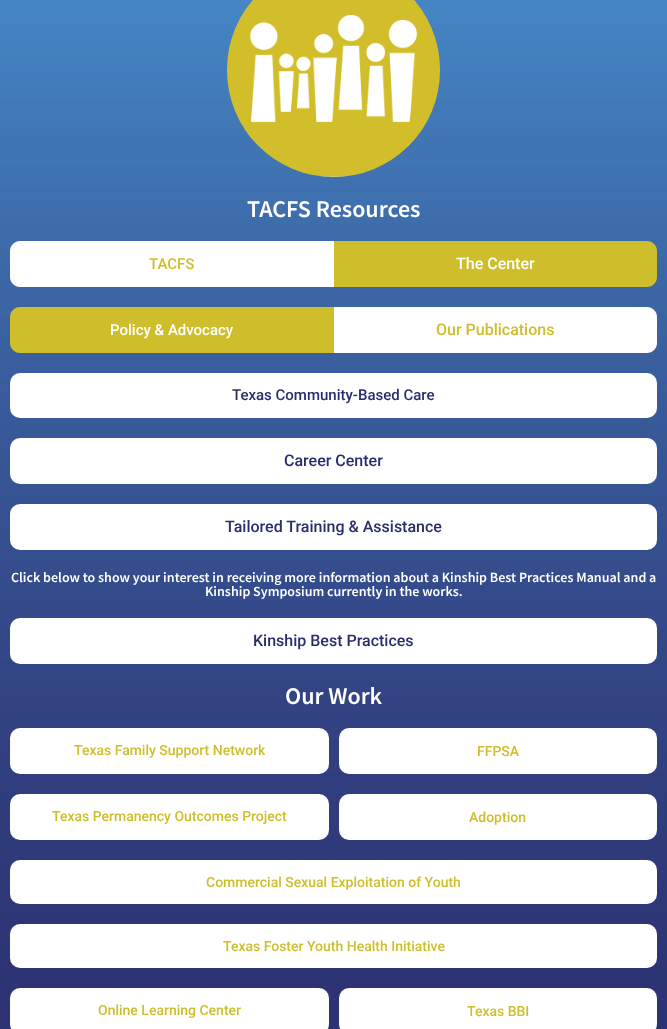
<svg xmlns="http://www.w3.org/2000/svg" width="667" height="1029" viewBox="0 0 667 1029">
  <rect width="100%" height="100%" fill="#ffffff"/>
  <image x="0" y="0" width="667" height="1029" href="img1.png"/>
  <image x="227" y="0" width="213" height="177" href="img2.png"/>
  <text x="247" y="217" font-family="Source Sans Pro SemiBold" font-size="24" font-weight="600" fill="#ffffff">TACFS Resources</text>
  <path d="M20 241H334V287H20C14.5 287 10 282.5 10 277V251C10 245.5 14.5 241 20 241Z" fill="#ffffff"/>
  <text x="149" y="269" font-family="Roboto" font-size="15" font-weight="500" fill="#cfbe2b">TACFS</text>
  <path d="M334 241H647C652.5 241 657 245.5 657 251V277C657 282.5 652.5 287 647 287H334Z" fill="#cfbe2b"/>
  <text x="456" y="269" font-family="Roboto" font-size="16" font-weight="500" fill="#ffffff">The Center</text>
  <path d="M20 307H334V353H20C14.5 353 10 348.5 10 343V317C10 311.5 14.5 307 20 307Z" fill="#cfbe2b"/>
  <text x="110" y="335" font-family="Roboto" font-size="15" font-weight="500" fill="#ffffff">Policy &amp; Advocacy</text>
  <path d="M334 307H647C652.5 307 657 311.5 657 317V343C657 348.5 652.5 353 647 353H334Z" fill="#ffffff"/>
  <text x="436" y="335" font-family="Roboto" font-size="16" font-weight="500" fill="#cfbe2b">Our Publications</text>
  <rect x="10" y="373" width="647" height="45" rx="10" fill="#ffffff"/>
  <text x="232" y="400" font-family="Roboto" font-size="15" font-weight="500" fill="#2a2c6d">Texas Community-Based Care</text>
  <rect x="10" y="438" width="647" height="46" rx="10" fill="#ffffff"/>
  <text x="284" y="466" font-family="Roboto" font-size="16" font-weight="500" fill="#2a2c6d">Career Center</text>
  <rect x="10" y="504" width="647" height="46" rx="10" fill="#ffffff"/>
  <text x="225" y="532" font-family="Roboto" font-size="16" font-weight="500" fill="#2a2c6d">Tailored Training &amp; Assistance</text>
  <text x="11" y="582" font-family="Source Sans Pro SemiBold" font-size="14" font-weight="600" fill="#ffffff">Click below to show your interest in receiving more information about a Kinship Best Practices Manual and a</text>
  <text x="205" y="596" font-family="Source Sans Pro SemiBold" font-size="14" font-weight="600" fill="#ffffff">Kinship Symposium currently in the works.</text>
  <rect x="10" y="618" width="647" height="46" rx="10" fill="#ffffff"/>
  <text x="253" y="646" font-family="Roboto" font-size="16" font-weight="500" fill="#2a2c6d">Kinship Best Practices</text>
  <text x="285" y="704" font-family="Source Sans Pro SemiBold" font-size="24" font-weight="600" fill="#ffffff">Our Work</text>
  <rect x="10" y="728" width="319" height="46" rx="10" fill="#ffffff"/>
  <text x="74" y="755" font-family="Roboto" font-size="14" font-weight="500" fill="#cfbe2b">Texas Family Support Network</text>
  <rect x="339" y="728" width="318" height="46" rx="10" fill="#ffffff"/>
  <text x="477" y="756" font-family="Roboto" font-size="14" font-weight="500" fill="#cfbe2b">FFPSA</text>
  <rect x="10" y="794" width="319" height="46" rx="10" fill="#ffffff"/>
  <text x="52" y="821" font-family="Roboto" font-size="14" font-weight="500" fill="#cfbe2b">Texas Permanency Outcomes Project</text>
  <rect x="339" y="794" width="318" height="46" rx="10" fill="#ffffff"/>
  <text x="469" y="822" font-family="Roboto" font-size="14" font-weight="500" fill="#cfbe2b">Adoption</text>
  <rect x="10" y="860" width="647" height="44" rx="10" fill="#ffffff"/>
  <text x="206" y="887" font-family="Roboto" font-size="14" font-weight="500" fill="#cfbe2b">Commercial Sexual Exploitation of Youth</text>
  <rect x="10" y="924" width="647" height="44" rx="10" fill="#ffffff"/>
  <text x="223" y="951" font-family="Roboto" font-size="14" font-weight="500" fill="#cfbe2b">Texas Foster Youth Health Initiative</text>
  <rect x="10" y="988" width="319" height="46" rx="10" fill="#ffffff"/>
  <text x="98" y="1015" font-family="Roboto" font-size="14" font-weight="500" fill="#cfbe2b">Online Learning Center</text>
  <rect x="339" y="988" width="318" height="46" rx="10" fill="#ffffff"/>
  <text x="467" y="1016" font-family="Roboto" font-size="14" font-weight="500" fill="#cfbe2b">Texas BBI</text>
</svg>
